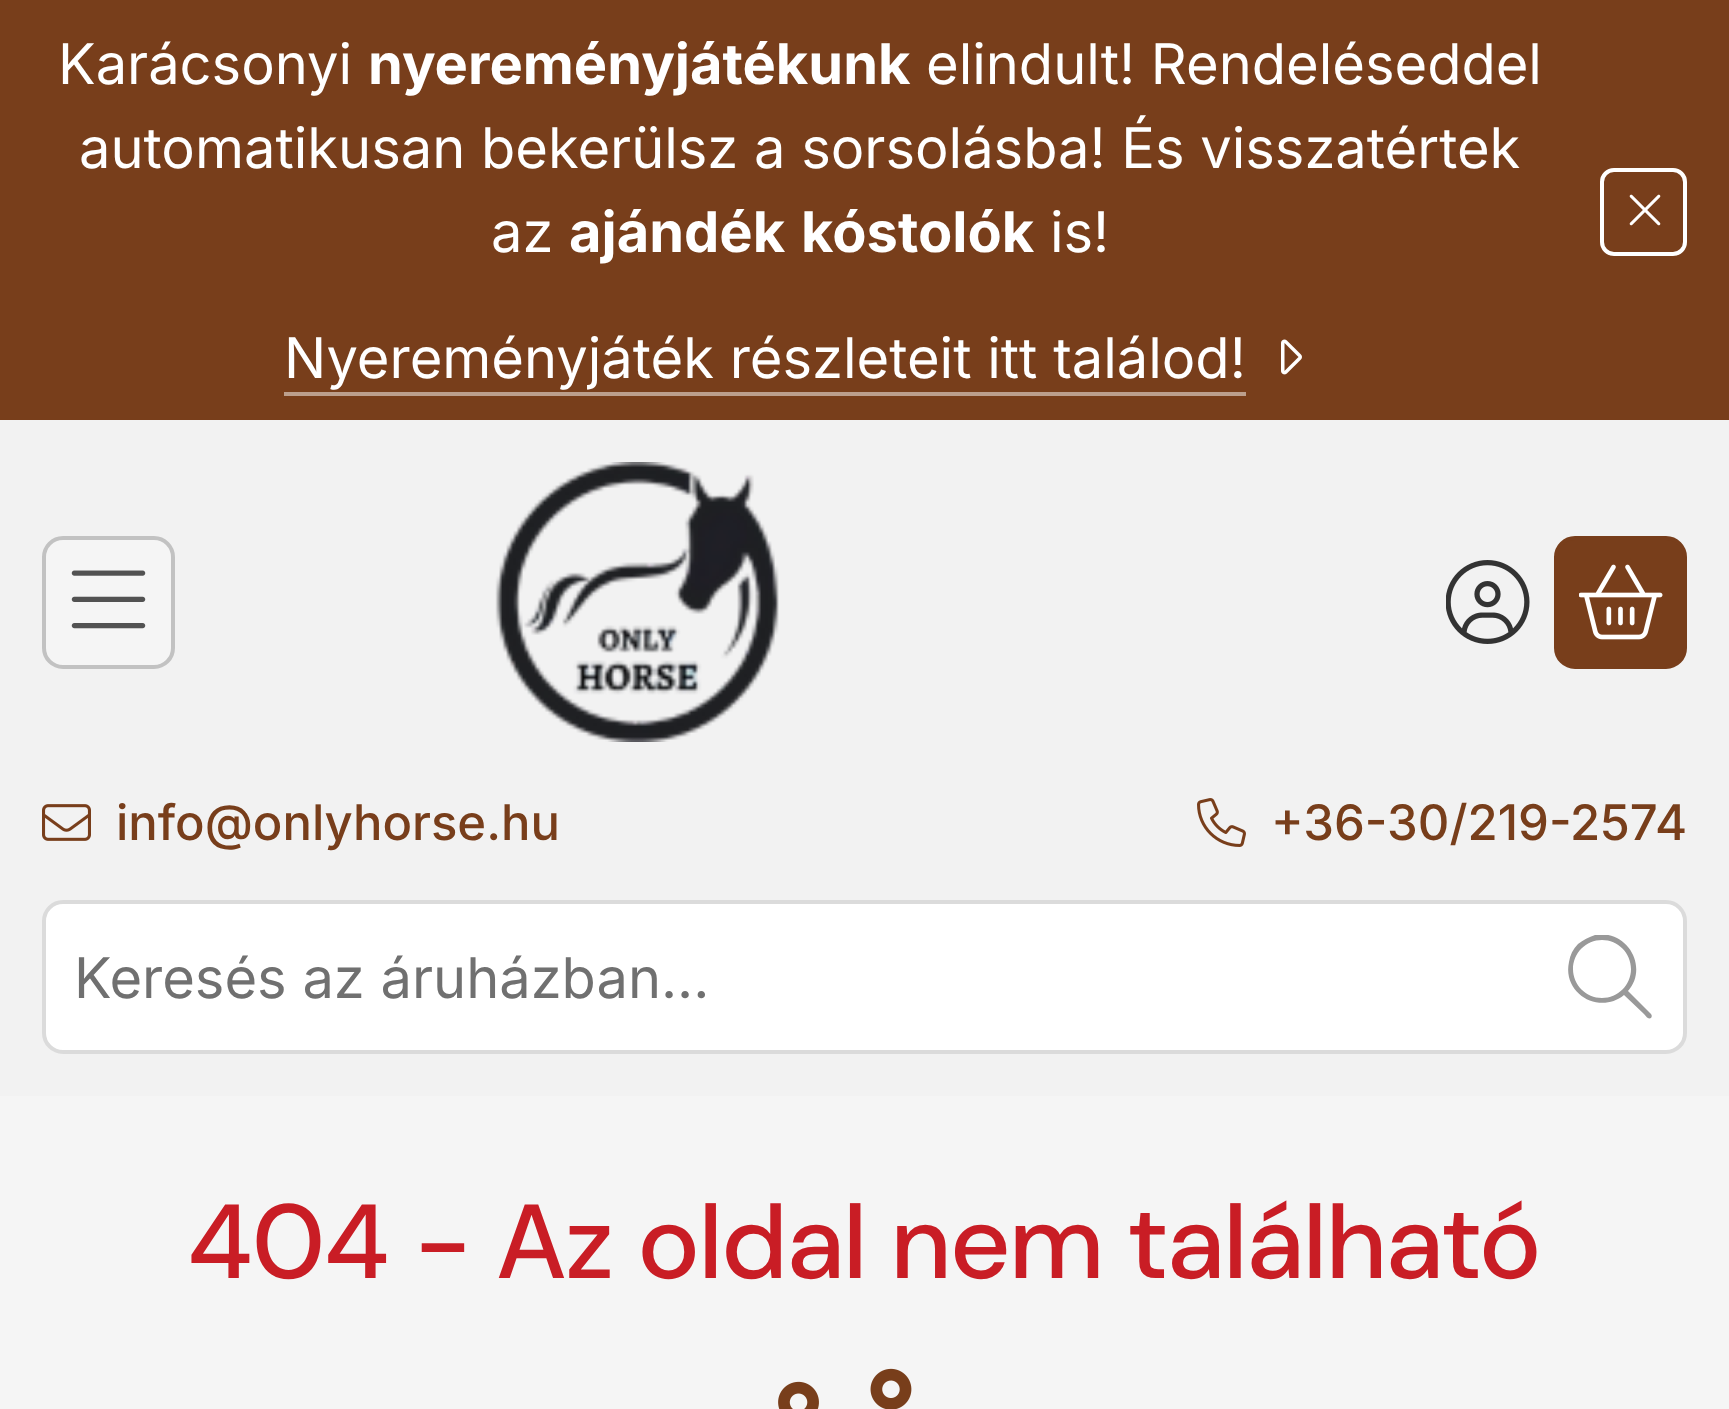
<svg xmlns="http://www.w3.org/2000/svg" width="1729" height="1409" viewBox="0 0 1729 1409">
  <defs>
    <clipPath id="clip1"><rect x="1568" y="935" width="84" height="84"/></clipPath>
  </defs>
  <rect width="100%" height="100%" fill="#f5f5f5"/>
  <rect x="0" y="0" width="1729" height="420" fill="#783e1b"/>
  <text x="58" y="84" font-family="Inter" font-size="56" fill="#ffffff">Karácsonyi</text>
  <text x="368" y="84" font-family="Inter" font-size="56" font-weight="bold" fill="#ffffff">nyereményjátékunk</text>
  <text x="926" y="84" font-family="Inter" font-size="56" fill="#ffffff">elindult! Rendeléseddel</text>
  <text x="79" y="168" font-family="Inter" font-size="56" fill="#ffffff">automatikusan bekerülsz a sorsolásba! És visszatértek</text>
  <text x="491" y="252" font-family="Inter" font-size="56" fill="#ffffff">az</text>
  <text x="569" y="252" font-family="Inter" font-size="56" font-weight="bold" fill="#ffffff">ajándék</text>
  <text x="801" y="252" font-family="Inter" font-size="56" font-weight="bold" fill="#ffffff">kóstolók</text>
  <text x="1050" y="252" font-family="Inter" font-size="56" fill="#ffffff">is!</text>
  <text x="284" y="378" font-family="Inter" font-size="56" fill="#ffffff">Nyereményjáték részleteit itt találod!</text>
  <rect x="284" y="392" width="962" height="4" fill="#bc9f8d"/>
  <image x="1281" y="339" width="21" height="36" href="img1.png"/>
  <rect x="1602" y="170" width="83" height="84" rx="12" fill="none" stroke="#ffffff" stroke-width="4"/>
  <image x="1629" y="194" width="32" height="32" href="img2.png"/>
  <rect x="0" y="420" width="1729" height="676" fill="#f2f2f2"/>
  <rect x="44" y="538" width="129" height="129" rx="19" fill="#f5f5f5" stroke="#c2c2c2" stroke-width="4"/>
  <image x="71" y="570" width="75" height="59" href="img3.png"/>
  <image x="495" y="462" width="284" height="280" href="img4.png"/>
  <image x="1446" y="560" width="84" height="84" href="img5.png"/>
  <rect x="1556" y="538" width="129" height="129" rx="19" fill="#783e1b" stroke="#783e1b" stroke-width="4"/>
  <image x="1579" y="564" width="84" height="76" href="img6.png"/>
  <image x="42" y="804" width="49" height="37" href="img7.png"/>
  <text x="116" y="840" font-family="Inter" font-size="49" font-weight="500" fill="#783e1b">info@onlyhorse.hu</text>
  <image x="1197" y="798" width="49" height="49" href="img8.png"/>
  <text x="1271" y="840" font-family="Inter" font-size="49" font-weight="500" fill="#783e1b">+36-30/219-2574</text>
  <rect x="44" y="902" width="1641" height="150" rx="19" fill="#ffffff" stroke="#dbdbdb" stroke-width="4"/>
  <text x="74" y="998" font-family="Inter" font-size="56" fill="#707070">Keresés az áruházban...</text>
  <g clip-path="url(#clip1)">
    <path d="M1651 1014L1628 991C1649 967 1627 929 1595 935C1589 937 1583 940 1578 944C1573 949 1570 955 1569 962C1562 994 1600 1015 1624 995L1644 1014C1645 1015 1648 1020 1651 1018C1652 1017 1652 1015 1651 1014ZM1602 998C1586 998 1573 985 1573 969C1573 953 1586 940 1602 940C1618 940 1631 953 1631 969C1631 985 1618 998 1602 998Z" fill="#999999"/>
  </g>
  <text x="188" y="1278" font-family="DM Sans" font-size="105" font-weight="500" fill="#c91d25">404 - Az oldal nem található</text>
  <image x="778" y="1368" width="134" height="41" href="img9.png"/>
</svg>
